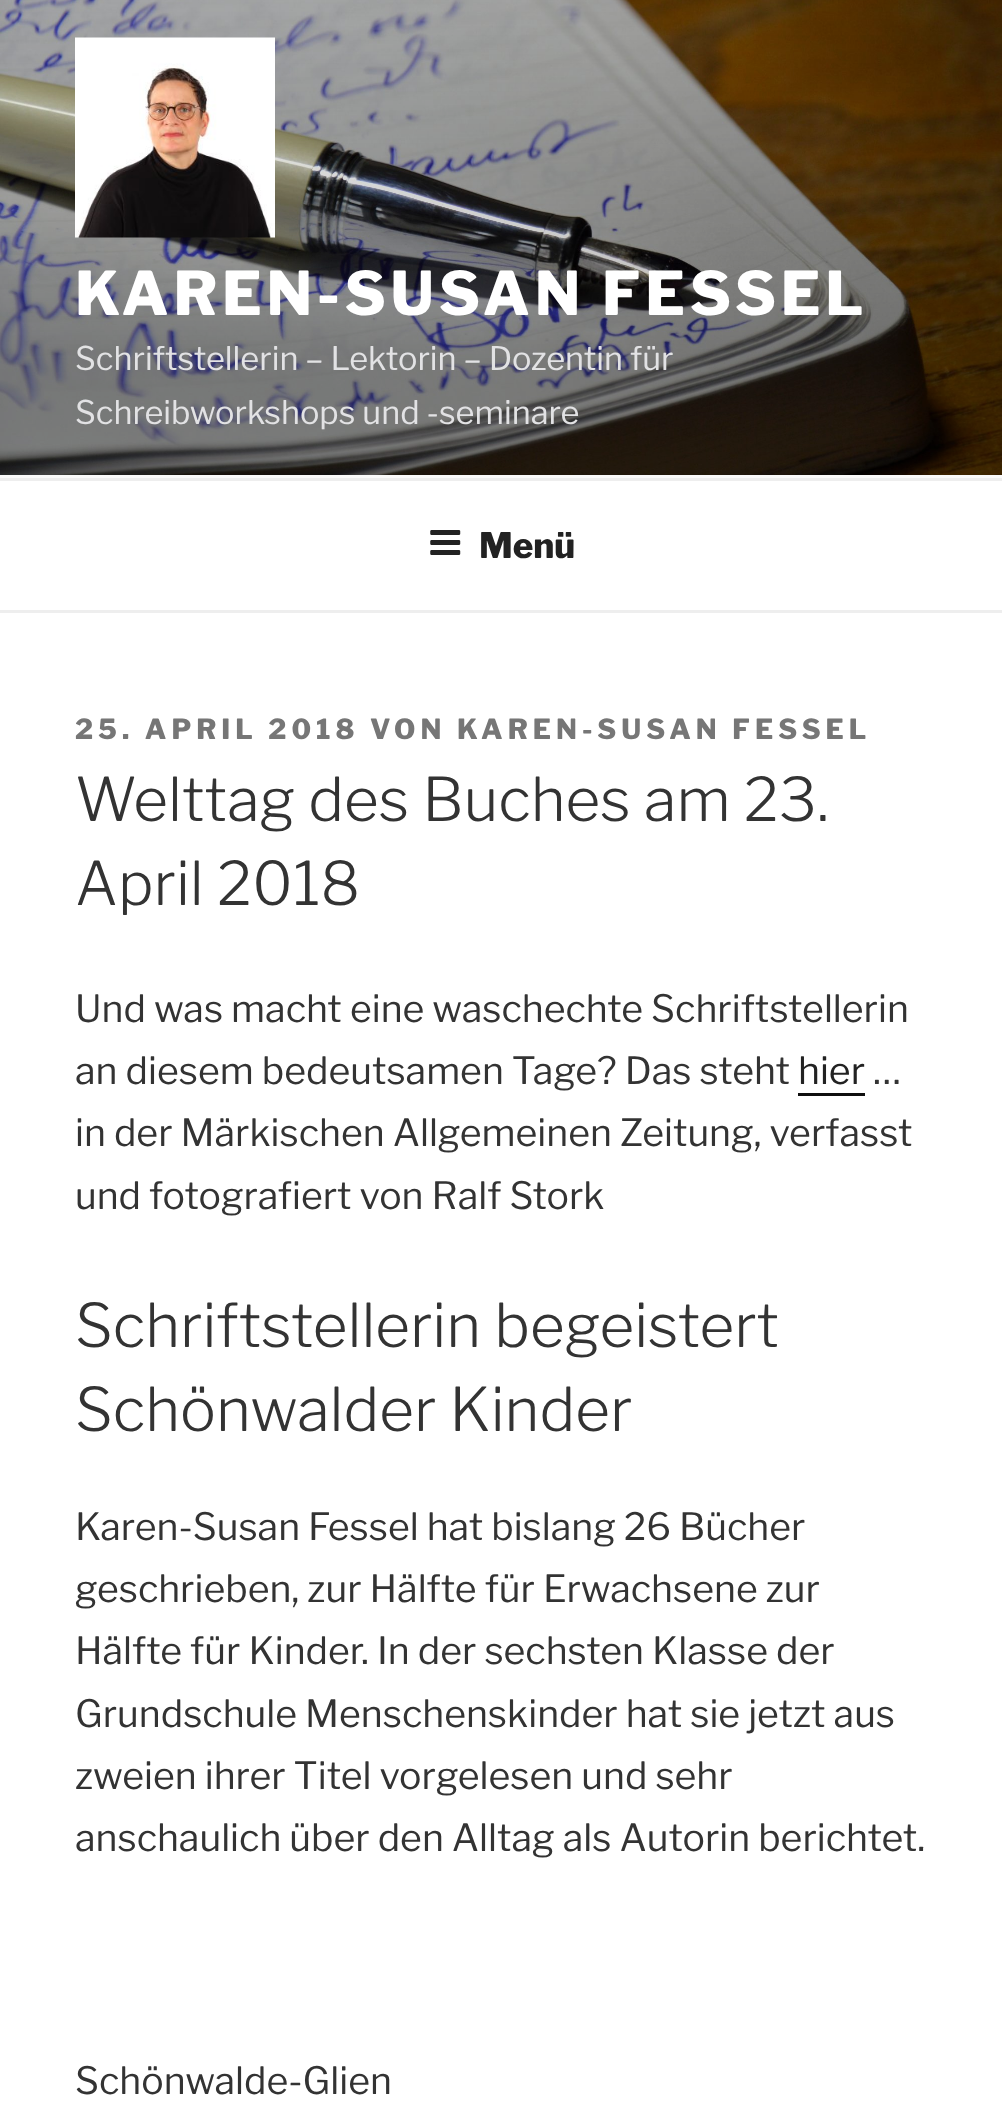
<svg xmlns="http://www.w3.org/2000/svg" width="1002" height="2123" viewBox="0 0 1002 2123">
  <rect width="100%" height="100%" fill="#ffffff"/>
  <rect x="0" y="475" width="1002" height="3" fill="#fafafa"/>
  <image x="0" y="0" width="1002" height="475" href="img1.png"/>
  <image x="75" y="37" width="200" height="201" href="img2.png"/>
  <text x="75" y="315" font-family="Libre Franklin" font-size="60" font-weight="100" letter-spacing="4.75" fill="#ffffff">KAREN-SUSAN FESSEL</text>
  <text x="75" y="370" font-family="'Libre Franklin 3'" font-size="32.5" font-weight="100" fill="#e2e2e4">Schriftstellerin – Lektorin – Dozentin für</text>
  <text x="75" y="424" font-family="'Libre Franklin 3'" font-size="32.5" font-weight="100" fill="#e2e2e4">Schreibworkshops und -seminare</text>
  <rect x="0" y="478" width="1002" height="3" fill="#eeeeee"/>
  <rect x="0" y="610" width="1002" height="3" fill="#eeeeee"/>
  <image x="430" y="530" width="31" height="25" href="img3.png"/>
  <text x="479" y="558" font-family="Libre Franklin" font-size="35" font-weight="100" fill="#222222">Menü</text>
  <text x="75" y="739" font-family="Libre Franklin" font-size="27.5" font-weight="100" letter-spacing="5" fill="#767676">25. APRIL 2018 VON KAREN-SUSAN FESSEL</text>
  <text x="75" y="821" font-family="'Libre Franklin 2'" font-size="60" font-weight="100" fill="#333333">Welttag des Buches am 23.</text>
  <text x="75" y="905" font-family="'Libre Franklin 2'" font-size="60" font-weight="100" fill="#333333">April 2018</text>
  <text x="75" y="1022" font-family="'Libre Franklin 3'" font-size="37.5" font-weight="100" fill="#333333">Und was macht eine waschechte Schriftstellerin</text>
  <text x="75" y="1084" font-family="'Libre Franklin 3'" font-size="37.5" font-weight="100" fill="#333333">an diesem bedeutsamen Tage? Das steht</text>
  <text x="798" y="1084" font-family="'Libre Franklin 3'" font-size="37.5" font-weight="100" fill="#222222">hier</text>
  <rect x="798" y="1093" width="67" height="3" fill="#0f0f0f"/>
  <text x="873" y="1084" font-family="'Libre Franklin 3'" font-size="37.5" font-weight="100" fill="#333333">…</text>
  <text x="75" y="1146" font-family="'Libre Franklin 3'" font-size="37.5" font-weight="100" fill="#333333">in der Märkischen Allgemeinen Zeitung, verfasst</text>
  <text x="75" y="1209" font-family="'Libre Franklin 3'" font-size="37.5" font-weight="100" fill="#333333">und fotografiert von Ralf Stork</text>
  <text x="75" y="1347" font-family="'Libre Franklin 2'" font-size="60" font-weight="100" fill="#333333">Schriftstellerin begeistert</text>
  <text x="75" y="1431" font-family="'Libre Franklin 2'" font-size="60" font-weight="100" fill="#333333">Schönwalder Kinder</text>
  <text x="75" y="1540" font-family="'Libre Franklin 3'" font-size="37.5" font-weight="100" fill="#333333">Karen-Susan Fessel hat bislang 26 Bücher</text>
  <text x="75" y="1602" font-family="'Libre Franklin 3'" font-size="37.5" font-weight="100" fill="#333333">geschrieben, zur Hälfte für Erwachsene zur</text>
  <text x="75" y="1664" font-family="'Libre Franklin 3'" font-size="37.5" font-weight="100" fill="#333333">Hälfte für Kinder. In der sechsten Klasse der</text>
  <text x="75" y="1727" font-family="'Libre Franklin 3'" font-size="37.5" font-weight="100" fill="#333333">Grundschule Menschenskinder hat sie jetzt aus</text>
  <text x="75" y="1789" font-family="'Libre Franklin 3'" font-size="37.5" font-weight="100" fill="#333333">zweien ihrer Titel vorgelesen und sehr</text>
  <text x="75" y="1851" font-family="'Libre Franklin 3'" font-size="37.5" font-weight="100" fill="#333333">anschaulich über den Alltag als Autorin berichtet.</text>
  <text x="75" y="2094" font-family="'Libre Franklin 3'" font-size="37.5" font-weight="100" fill="#333333">Schönwalde-Glien</text>
</svg>
